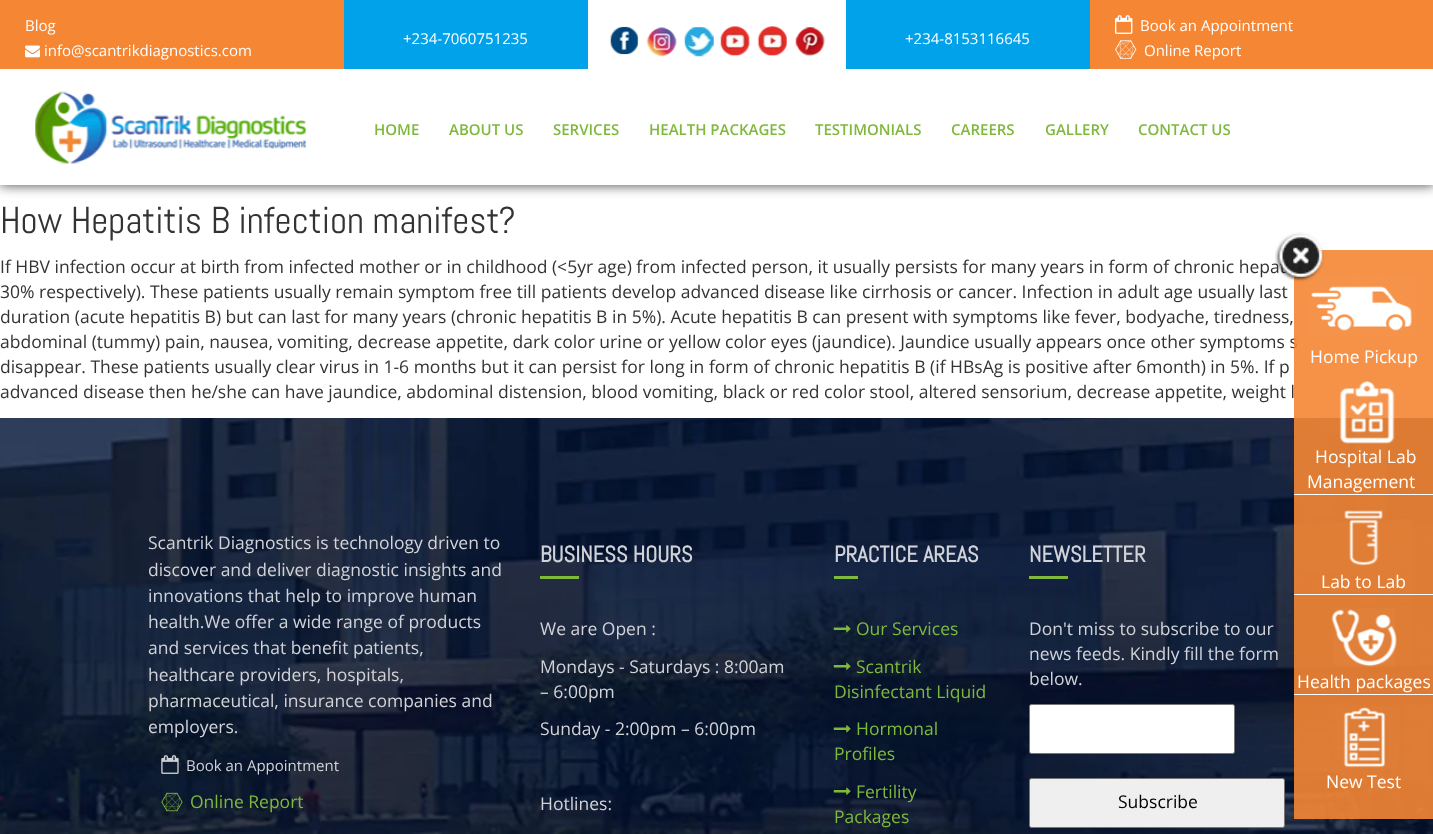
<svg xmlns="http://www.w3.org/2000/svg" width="1433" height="834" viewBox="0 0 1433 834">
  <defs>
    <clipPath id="clip1"><rect x="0" y="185" width="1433" height="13"/></clipPath>
    <filter id="blur1" x="-50%" y="-200%" width="200%" height="500%"><feGaussianBlur stdDeviation="6"/></filter>
  </defs>
  <rect width="100%" height="100%" fill="#ffffff"/>
  <g clip-path="url(#clip1)">
    <rect x="0" y="1" width="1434" height="185" fill="#5c5c5c" filter="url(#blur1)"/>
  </g>
  <rect x="0" y="0" width="344" height="69" fill="#f58634"/>
  <text x="25" y="31" font-family="Open Sans" font-size="15" fill="#ffffff">Blog</text>
  <image x="25" y="45" width="15" height="13" href="img1.png"/>
  <text x="44" y="56" font-family="Open Sans" font-size="15" fill="#ffffff">info@scantrikdiagnostics.com</text>
  <rect x="344" y="0" width="244" height="69" fill="#01a2e9"/>
  <text x="403" y="44" font-family="Open Sans" font-size="15" fill="#ffffff">+234-7060751235</text>
  <image x="610" y="26" width="29" height="29" href="img2.png"/>
  <image x="646" y="27" width="31" height="30" href="img3.png"/>
  <image x="684" y="27" width="30" height="30" href="img4.png"/>
  <image x="720" y="26" width="30" height="30" href="img5.png"/>
  <image x="757" y="26" width="30" height="30" href="img6.png"/>
  <image x="795" y="27" width="30" height="30" href="img7.png"/>
  <rect x="846" y="0" width="244" height="69" fill="#01a2e9"/>
  <text x="905" y="44" font-family="Open Sans" font-size="15" fill="#ffffff">+234-8153116645</text>
  <rect x="1090" y="0" width="343" height="69" fill="#f58634"/>
  <image x="1115" y="15" width="18" height="19" href="img8.png"/>
  <text x="1140" y="31" font-family="Open Sans" font-size="15" fill="#ffffff">Book an Appointment</text>
  <image x="1115" y="40" width="22" height="19" href="img9.png"/>
  <text x="1144" y="56" font-family="Open Sans" font-size="15" fill="#ffffff">Online Report</text>
  <image x="35" y="91" width="271" height="73" href="img10.png"/>
  <text x="374" y="135" font-family="Open Sans" font-size="15" font-weight="600" fill="#7fb93c">HOME</text>
  <text x="449" y="135" font-family="Open Sans" font-size="15" font-weight="600" fill="#7fb93c">ABOUT US</text>
  <text x="553" y="135" font-family="Open Sans" font-size="15" font-weight="600" fill="#7fb93c">SERVICES</text>
  <text x="649" y="135" font-family="Open Sans" font-size="15" font-weight="600" fill="#7fb93c">HEALTH PACKAGES</text>
  <text x="815" y="135" font-family="Open Sans" font-size="15" font-weight="600" fill="#7fb93c">TESTIMONIALS</text>
  <text x="951" y="135" font-family="Open Sans" font-size="15" font-weight="600" fill="#7fb93c">CAREERS</text>
  <text x="1045" y="135" font-family="Open Sans" font-size="15" font-weight="600" fill="#7fb93c">GALLERY</text>
  <text x="1138" y="135" font-family="Open Sans" font-size="15" font-weight="600" fill="#7fb93c">CONTACT US</text>
  <text x="0" y="233" font-family="Abel" font-size="37.5" fill="#333333">How Hepatitis B infection manifest?</text>
  <text x="0" y="273" font-family="Open Sans" font-size="17.5" fill="#333333">If HBV infection occur at birth from infected mother or in childhood (&lt;5yr age) from infected person, it usually persists for many years in form of chronic hepat</text>
  <text x="0" y="298" font-family="Open Sans" font-size="17.5" fill="#333333">30% respectively). These patients usually remain symptom free till patients develop advanced disease like cirrhosis or cancer. Infection in adult age usually last</text>
  <text x="0" y="323" font-family="Open Sans" font-size="17.5" fill="#333333">duration (acute hepatitis B) but can last for many years (chronic hepatitis B in 5%). Acute hepatitis B can present with symptoms like fever, bodyache, tiredness,</text>
  <text x="0" y="348" font-family="Open Sans" font-size="17.5" fill="#333333">abdominal (tummy) pain, nausea, vomiting, decrease appetite, dark color urine or yellow color eyes (jaundice). Jaundice usually appears once other symptoms s</text>
  <text x="0" y="373" font-family="Open Sans" font-size="17.5" fill="#333333">disappear. These patients usually clear virus in 1-6 months but it can persist for long in form of chronic hepatitis B (if HBsAg is positive after 6month) in 5%. If p</text>
  <text x="0" y="398" font-family="Open Sans" font-size="17.5" fill="#333333">advanced disease then he/she can have jaundice, abdominal distension, blood vomiting, black or red color stool, altered sensorium, decrease appetite, weight l</text>
  <image x="0" y="418" width="1433" height="416" href="img11.png"/>
  <text x="148" y="549" font-family="Open Sans" font-size="17.5" fill="#d1d3d8">Scantrik Diagnostics is technology driven to</text>
  <text x="148" y="576" font-family="Open Sans" font-size="17.5" fill="#d1d3d8">discover and deliver diagnostic insights and</text>
  <text x="148" y="602" font-family="Open Sans" font-size="17.5" fill="#d1d3d8">innovations that help to improve human</text>
  <text x="148" y="628" font-family="Open Sans" font-size="17.5" fill="#d1d3d8">health.We offer a wide range of products</text>
  <text x="148" y="654" font-family="Open Sans" font-size="17.5" fill="#d1d3d8">and services that benefit patients,</text>
  <text x="148" y="681" font-family="Open Sans" font-size="17.5" fill="#d1d3d8">healthcare providers, hospitals,</text>
  <text x="148" y="707" font-family="Open Sans" font-size="17.5" fill="#d1d3d8">pharmaceutical, insurance companies and</text>
  <text x="148" y="733" font-family="Open Sans" font-size="17.5" fill="#d1d3d8">employers.</text>
  <image x="161" y="755" width="18" height="19" href="img12.png"/>
  <text x="186" y="771" font-family="Open Sans" font-size="15" fill="#d1d3d8">Book an Appointment</text>
  <image x="161" y="792" width="22" height="20" href="img13.png"/>
  <text x="190" y="808" font-family="Open Sans" font-size="17.5" fill="#7fb93c">Online Report</text>
  <text x="540" y="562" font-family="Abel" font-size="22.5" font-weight="bold" fill="#d1d3d8">BUSINESS HOURS</text>
  <rect x="540" y="576" width="39" height="3" fill="#7fb93c"/>
  <text x="540" y="635" font-family="Open Sans" font-size="17.5" fill="#d1d3d8">We are Open :</text>
  <text x="540" y="673" font-family="Open Sans" font-size="17.5" fill="#d1d3d8">Mondays - Saturdays : 8:00am</text>
  <text x="540" y="698" font-family="Open Sans" font-size="17.5" fill="#d1d3d8">– 6:00pm</text>
  <text x="540" y="735" font-family="Open Sans" font-size="17.5" fill="#d1d3d8">Sunday - 2:00pm – 6:00pm</text>
  <text x="540" y="810" font-family="Open Sans" font-size="17.5" fill="#d1d3d8">Hotlines:</text>
  <text x="834" y="562" font-family="Abel" font-size="22.5" font-weight="bold" fill="#d1d3d8">PRACTICE AREAS</text>
  <rect x="834" y="576" width="24" height="3" fill="#7fb93c"/>
  <image x="833" y="625" width="18" height="8" href="img14.png"/>
  <text x="856" y="635" font-family="Open Sans" font-size="17.5" fill="#7fb93c">Our Services</text>
  <image x="833" y="662" width="18" height="8" href="img15.png"/>
  <text x="856" y="673" font-family="Open Sans" font-size="17.5" fill="#7fb93c">Scantrik</text>
  <text x="834" y="698" font-family="Open Sans" font-size="17.5" fill="#7fb93c">Disinfectant Liquid</text>
  <image x="833" y="725" width="18" height="8" href="img16.png"/>
  <text x="856" y="735" font-family="Open Sans" font-size="17.5" fill="#7fb93c">Hormonal</text>
  <text x="834" y="760" font-family="Open Sans" font-size="17.5" fill="#7fb93c">Profiles</text>
  <image x="833" y="787" width="18" height="8" href="img17.png"/>
  <text x="856" y="798" font-family="Open Sans" font-size="17.5" fill="#7fb93c">Fertility</text>
  <text x="834" y="823" font-family="Open Sans" font-size="17.5" fill="#7fb93c">Packages</text>
  <text x="1029" y="562" font-family="Abel" font-size="22.5" font-weight="bold" fill="#d1d3d8">NEWSLETTER</text>
  <rect x="1029" y="576" width="39" height="3" fill="#7fb93c"/>
  <text x="1029" y="635" font-family="Open Sans" font-size="17.5" fill="#d1d3d8">Don't miss to subscribe to our</text>
  <text x="1029" y="660" font-family="Open Sans" font-size="17.5" fill="#d1d3d8">news feeds. Kindly fill the form</text>
  <text x="1029" y="685" font-family="Open Sans" font-size="17.5" fill="#d1d3d8">below.</text>
  <rect x="1029.5" y="704.5" width="205" height="49" rx="2" fill="#ffffff" stroke="#767676"/>
  <rect x="1029.5" y="778.5" width="255" height="49" rx="2" fill="#efefef" stroke="#767676"/>
  <text x="1118" y="808" font-family="Open Sans" font-size="17.5" fill="#000000">Subscribe</text>
  <rect x="1294" y="250" width="139" height="569" fill="#f58634" fill-opacity="0.9"/>
  <image x="1275" y="232" width="49" height="50" href="img18.png"/>
  <image x="1307" y="275" width="110" height="62" href="img19.png"/>
  <text x="1310" y="363" font-family="Open Sans" font-size="17.5" fill="#ffffff">Home Pickup</text>
  <image x="1339" y="381" width="56" height="63" href="img20.png"/>
  <text x="1315" y="463" font-family="Open Sans" font-size="17.5" fill="#ffffff">Hospital Lab</text>
  <text x="1307" y="488" font-family="Open Sans" font-size="17.5" fill="#ffffff">Management</text>
  <rect x="1294" y="494" width="139" height="1" fill="#ffffff"/>
  <image x="1344" y="510" width="39" height="56" href="img21.png"/>
  <text x="1321" y="588" font-family="Open Sans" font-size="17.5" fill="#ffffff">Lab to Lab</text>
  <rect x="1294" y="594" width="139" height="1" fill="#ffffff"/>
  <image x="1331" y="608" width="66" height="59" href="img22.png"/>
  <text x="1297" y="688" font-family="Open Sans" font-size="17.5" fill="#ffffff">Health packages</text>
  <rect x="1294" y="694" width="139" height="1" fill="#ffffff"/>
  <image x="1335" y="707" width="65" height="61" href="img23.png"/>
  <text x="1326" y="788" font-family="Open Sans" font-size="17.5" fill="#ffffff">New Test</text>
</svg>
